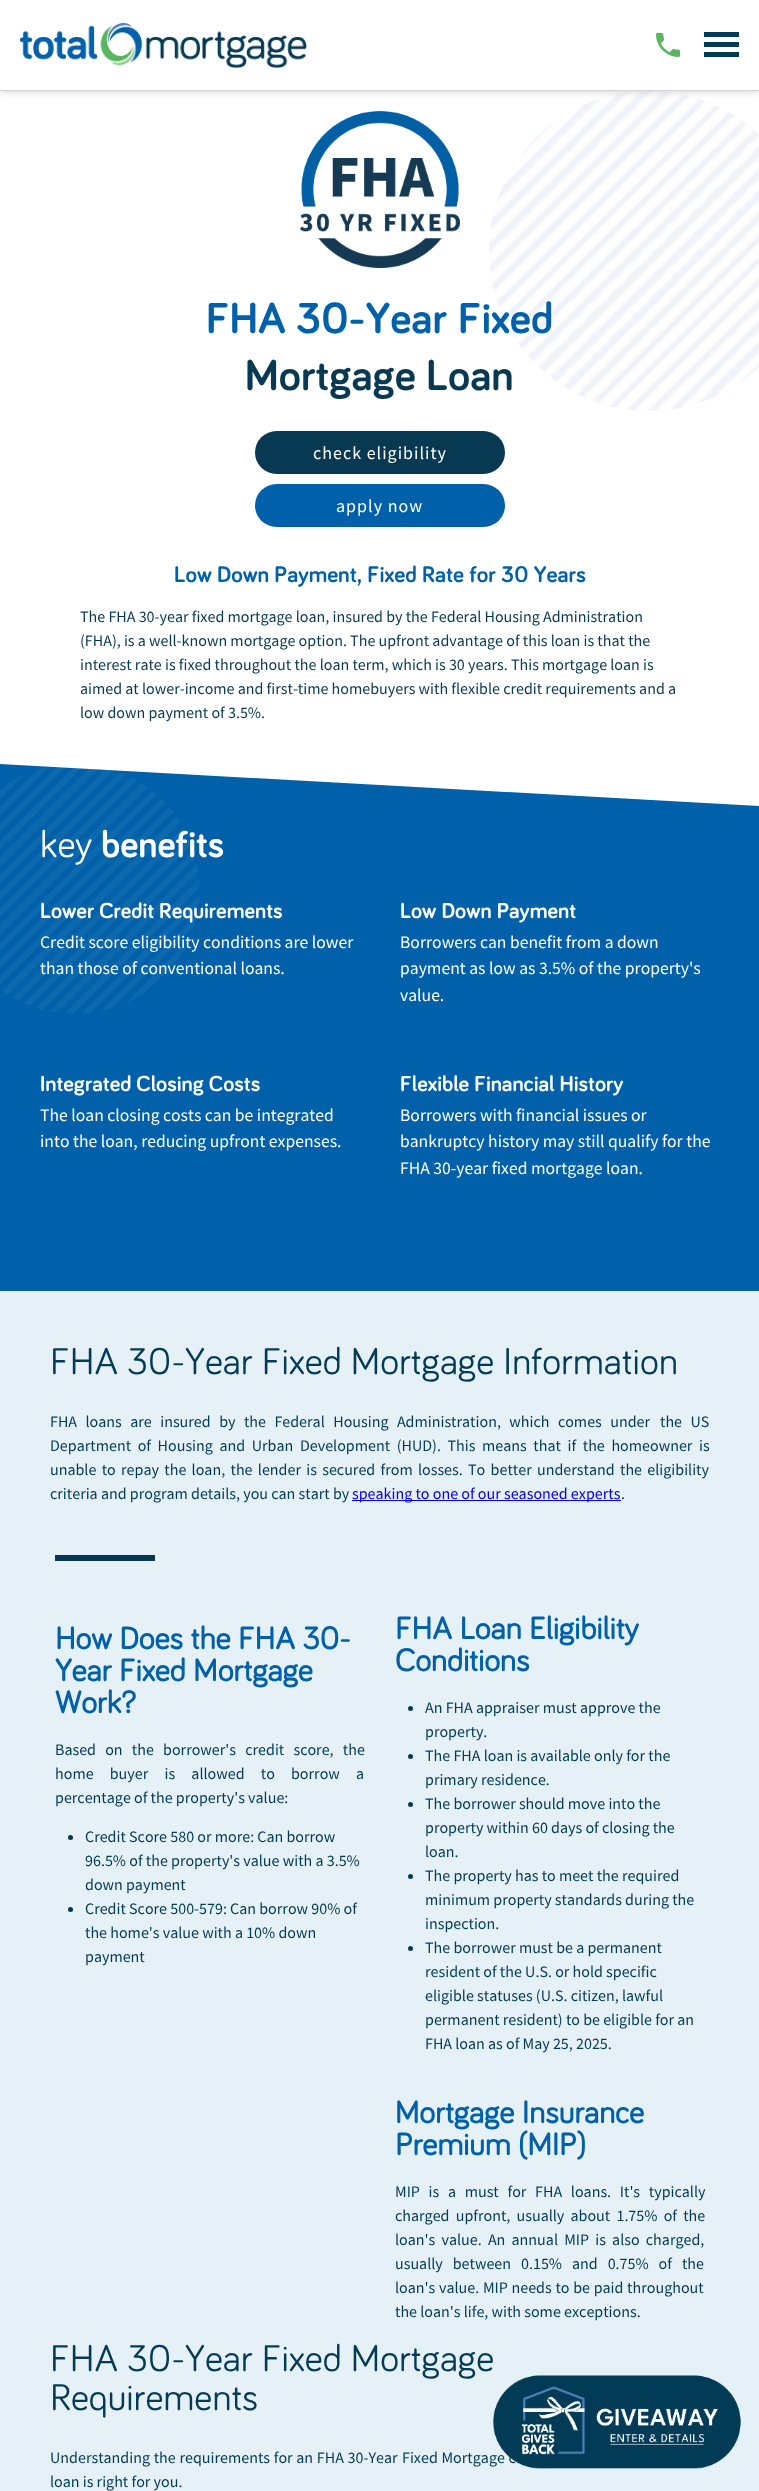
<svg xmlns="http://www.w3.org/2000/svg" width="759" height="2491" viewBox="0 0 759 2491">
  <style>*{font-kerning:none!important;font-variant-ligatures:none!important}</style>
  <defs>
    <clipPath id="clip1"><rect x="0" y="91" width="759" height="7"/></clipPath>
    <filter id="blur1" x="-50%" y="-200%" width="200%" height="500%"><feGaussianBlur stdDeviation="3.5"/></filter>
  </defs>
  <rect width="100%" height="100%" fill="#ffffff"/>
  <image x="489" y="91" width="270" height="320" href="img3.png"/>
  <g clip-path="url(#clip1)">
    <rect x="0" y="1" width="759" height="91" fill="#b6b6b6" fill-opacity="0.6" filter="url(#blur1)"/>
  </g>
  <rect x="0" y="90" width="759" height="1" fill="#d4d4d4"/>
  <image x="20" y="23" width="287" height="45" href="img1.png"/>
  <image x="656" y="33" width="24" height="24" href="img2.png"/>
  <rect x="704" y="42" width="35" height="5" fill="#013b56"/>
  <rect x="704" y="32" width="35" height="5" fill="#013b56"/>
  <rect x="704" y="52" width="35" height="5" fill="#013b56"/>
  <image x="300" y="111" width="160" height="157" href="img4.png"/>
  <text x="206" y="333" font-family="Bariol" font-size="44.75" font-weight="bold" fill="#0061aa">FHA 30-Year</text>
  <text x="458" y="333" font-family="Bariol" font-size="44.75" font-weight="bold" fill="#0061aa">Fixed</text>
  <text x="245" y="390" font-family="Bariol" font-size="44.75" font-weight="bold" fill="#083953">Mortgage Loan</text>
  <rect x="255" y="431" width="250" height="43" rx="21.5" fill="#083953"/>
  <text x="313" y="459" font-family="Source Sans Pro" font-size="18" letter-spacing="1" fill="#ffffff">check eligibility</text>
  <rect x="255" y="484" width="250" height="43" rx="21.5" fill="#0061aa"/>
  <text x="336" y="512" font-family="Source Sans Pro" font-size="18" letter-spacing="1" fill="#ffffff">apply now</text>
  <text x="174" y="582" font-family="Bariol" font-size="23.25" font-weight="bold" fill="#0061aa">Low Down Payment, Fixed Rate for 30 Years</text>
  <text x="80" y="622" font-family="Source Sans Pro" font-size="16" fill="#083953">The FHA 30-year fixed mortgage loan, insured by the Federal Housing Administration</text>
  <text x="80" y="646" font-family="Source Sans Pro" font-size="16" fill="#083953">(FHA), is a well-known mortgage option. The upfront advantage of this loan is that the</text>
  <text x="80" y="670" font-family="Source Sans Pro" font-size="16" fill="#083953">interest rate is fixed throughout the loan term, which is 30 years. This mortgage loan is</text>
  <text x="80" y="694" font-family="Source Sans Pro" font-size="16" fill="#083953">aimed at lower-income and first-time homebuyers with flexible credit requirements and a</text>
  <text x="80" y="718" font-family="Source Sans Pro" font-size="16" fill="#083953">low down payment of 3.5%.</text>
  <path d="M0 764V1291H759V806Z" fill="#0061aa"/>
  <image x="0" y="767" width="200" height="247" href="img5.png"/>
  <text x="40" y="857" font-family="Bariol" font-size="38.4" fill="#ffffff">key</text>
  <text x="101" y="857" font-family="Bariol" font-size="38.4" font-weight="bold" fill="#ffffff">benefits</text>
  <text x="40" y="918" font-family="Bariol" font-size="22.4" font-weight="bold" fill="#ffffff">Lower Credit Requirements</text>
  <text x="40" y="948" font-family="Source Sans Pro" font-size="17.6" fill="#ffffff">Credit score eligibility conditions are lower</text>
  <text x="40" y="974" font-family="Source Sans Pro" font-size="17.6" fill="#ffffff">than those of conventional loans.</text>
  <text x="400" y="918" font-family="Bariol" font-size="22.4" font-weight="bold" fill="#ffffff">Low Down Payment</text>
  <text x="400" y="948" font-family="Source Sans Pro" font-size="17.6" fill="#ffffff">Borrowers can benefit from a down</text>
  <text x="400" y="974" font-family="Source Sans Pro" font-size="17.6" fill="#ffffff">payment as low as 3.5% of the property's</text>
  <text x="400" y="1001" font-family="Source Sans Pro" font-size="17.6" fill="#ffffff">value.</text>
  <text x="40" y="1091" font-family="Bariol" font-size="22.4" font-weight="bold" fill="#ffffff">Integrated Closing Costs</text>
  <text x="40" y="1121" font-family="Source Sans Pro" font-size="17.6" fill="#ffffff">The loan closing costs can be integrated</text>
  <text x="40" y="1147" font-family="Source Sans Pro" font-size="17.6" fill="#ffffff">into the loan, reducing upfront expenses.</text>
  <text x="400" y="1091" font-family="Bariol" font-size="22.4" font-weight="bold" fill="#ffffff">Flexible Financial History</text>
  <text x="400" y="1121" font-family="Source Sans Pro" font-size="17.6" fill="#ffffff">Borrowers with financial issues or</text>
  <text x="400" y="1147" font-family="Source Sans Pro" font-size="17.6" fill="#ffffff">bankruptcy history may still qualify for the</text>
  <text x="400" y="1174" font-family="Source Sans Pro" font-size="17.6" fill="#ffffff">FHA 30-year fixed mortgage loan.</text>
  <rect x="0" y="1291" width="759" height="1200" fill="#e6f0f7"/>
  <text x="50" y="1374" font-family="Bariol" font-size="38.4" fill="#013b56">FHA 30-Year Fixed</text>
  <text x="351" y="1374" font-family="Bariol" font-size="38.4" fill="#013b56">Mortgage Information</text>
  <text x="50" y="1427" word-spacing="5.25" font-family="Source Sans Pro" font-size="16" fill="#013b56">FHA loans are insured by the Federal Housing Administration, which comes under</text>
  <text x="660" y="1427" word-spacing="5.25" font-family="Source Sans Pro" font-size="16" fill="#013b56">the US</text>
  <text x="50" y="1451" word-spacing="3.4" font-family="Source Sans Pro" font-size="16" fill="#013b56">Department of Housing and Urban Development (HUD). This means that if the homeowner is</text>
  <text x="50" y="1475" word-spacing="2.1" font-family="Source Sans Pro" font-size="16" fill="#013b56">unable to repay the loan, the lender is secured from losses. To better understand</text>
  <text x="620" y="1475" word-spacing="2.1" font-family="Source Sans Pro" font-size="16" fill="#013b56">the eligibility</text>
  <text x="50" y="1499" font-family="Source Sans Pro" font-size="16" fill="#013b56">criteria and program details, you can start by</text>
  <rect x="352" y="1500" width="269" height="1" fill="#0000ee"/>
  <text x="352" y="1499" font-family="Source Sans Pro" font-size="16" fill="#0000ee">speaking to one of our seasoned experts</text>
  <text x="621" y="1499" font-family="Source Sans Pro" font-size="16" fill="#013b56">.</text>
  <rect x="55" y="1555" width="100" height="6" fill="#083953"/>
  <text x="55" y="1649" font-family="'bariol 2'" font-size="32" font-weight="bold" fill="#0061aa">How Does the FHA 30-</text>
  <text x="55" y="1681" font-family="'bariol 2'" font-size="32" font-weight="bold" fill="#0061aa">Year Fixed Mortgage</text>
  <text x="55" y="1713" font-family="'bariol 2'" font-size="32" font-weight="bold" fill="#0061aa">Work?</text>
  <text x="55" y="1755" word-spacing="6" font-family="Source Sans Pro" font-size="16" fill="#013b56">Based on the borrower's credit score, the</text>
  <text x="55" y="1779" word-spacing="13" font-family="Source Sans Pro" font-size="16" fill="#013b56">home buyer is allowed to borrow a</text>
  <text x="55" y="1803" font-family="Source Sans Pro" font-size="16" fill="#013b56">percentage of the property's value:</text>
  <circle cx="70.5" cy="1837.5" r="2.5" fill="#013b56"/>
  <text x="85" y="1842" font-family="Source Sans Pro" font-size="16" fill="#013b56">Credit Score 580 or more: Can borrow</text>
  <text x="85" y="1866" font-family="Source Sans Pro" font-size="16" fill="#013b56">96.5% of the property's value with a 3.5%</text>
  <text x="85" y="1890" font-family="Source Sans Pro" font-size="16" fill="#013b56">down payment</text>
  <circle cx="70.5" cy="1909.5" r="2.5" fill="#013b56"/>
  <text x="85" y="1914" font-family="Source Sans Pro" font-size="16" fill="#013b56">Credit Score 500-579: Can borrow 90% of</text>
  <text x="85" y="1938" font-family="Source Sans Pro" font-size="16" fill="#013b56">the home's value with a 10% down</text>
  <text x="85" y="1962" font-family="Source Sans Pro" font-size="16" fill="#013b56">payment</text>
  <text x="395" y="1639" font-family="'bariol 2'" font-size="32" font-weight="bold" fill="#0061aa">FHA Loan Eligibility</text>
  <text x="395" y="1671" font-family="'bariol 2'" font-size="32" font-weight="bold" fill="#0061aa">Conditions</text>
  <circle cx="410.5" cy="1708.5" r="2.5" fill="#013b56"/>
  <text x="425" y="1713" font-family="Source Sans Pro" font-size="16" fill="#013b56">An FHA appraiser must approve the</text>
  <text x="425" y="1737" font-family="Source Sans Pro" font-size="16" fill="#013b56">property.</text>
  <circle cx="410.5" cy="1756.5" r="2.5" fill="#013b56"/>
  <text x="425" y="1761" font-family="Source Sans Pro" font-size="16" fill="#013b56">The FHA loan is available only for the</text>
  <text x="425" y="1785" font-family="Source Sans Pro" font-size="16" fill="#013b56">primary residence.</text>
  <circle cx="410.5" cy="1804.5" r="2.5" fill="#013b56"/>
  <text x="425" y="1809" font-family="Source Sans Pro" font-size="16" fill="#013b56">The borrower should move into the</text>
  <text x="425" y="1833" font-family="Source Sans Pro" font-size="16" fill="#013b56">property within 60 days of closing the</text>
  <text x="425" y="1857" font-family="Source Sans Pro" font-size="16" fill="#013b56">loan.</text>
  <circle cx="410.5" cy="1876.5" r="2.5" fill="#013b56"/>
  <text x="425" y="1881" font-family="Source Sans Pro" font-size="16" fill="#013b56">The property has to meet the required</text>
  <text x="425" y="1905" font-family="Source Sans Pro" font-size="16" fill="#013b56">minimum property standards during the</text>
  <text x="425" y="1929" font-family="Source Sans Pro" font-size="16" fill="#013b56">inspection.</text>
  <circle cx="410.5" cy="1948.5" r="2.5" fill="#013b56"/>
  <text x="425" y="1953" font-family="Source Sans Pro" font-size="16" fill="#013b56">The borrower must be a permanent</text>
  <text x="425" y="1977" font-family="Source Sans Pro" font-size="16" fill="#013b56">resident of the U.S. or hold specific</text>
  <text x="425" y="2001" font-family="Source Sans Pro" font-size="16" fill="#013b56">eligible statuses (U.S. citizen, lawful</text>
  <text x="425" y="2025" font-family="Source Sans Pro" font-size="16" fill="#013b56">permanent resident) to be eligible for an</text>
  <text x="425" y="2049" font-family="Source Sans Pro" font-size="16" fill="#013b56">FHA loan as of May 25, 2025.</text>
  <text x="395" y="2123" font-family="'bariol 2'" font-size="32" font-weight="bold" fill="#0061aa">Mortgage Insurance</text>
  <text x="395" y="2155" font-family="'bariol 2'" font-size="32" font-weight="bold" fill="#0061aa">Premium (MIP)</text>
  <text x="395" y="2197" word-spacing="5.5" font-family="Source Sans Pro" font-size="16" fill="#013b56">MIP is a must for FHA loans. It's typically</text>
  <text x="395" y="2221" word-spacing="3" font-family="Source Sans Pro" font-size="16" fill="#013b56">charged upfront, usually about 1.75% of the</text>
  <text x="395" y="2245" word-spacing="3" font-family="Source Sans Pro" font-size="16" fill="#013b56">loan's value. An annual MIP is also charged,</text>
  <text x="395" y="2269" word-spacing="6.75" font-family="Source Sans Pro" font-size="16" fill="#013b56">usually between 0.15% and 0.75% of the</text>
  <text x="395" y="2293" word-spacing="0.5" font-family="Source Sans Pro" font-size="16" fill="#013b56">loan's value. MIP needs to be paid throughout</text>
  <text x="395" y="2317" font-family="Source Sans Pro" font-size="16" fill="#013b56">the loan's life, with some exceptions.</text>
  <text x="50" y="2371" font-family="Bariol" font-size="38.4" fill="#013b56">FHA 30-Year Fixed</text>
  <text x="351" y="2371" font-family="Bariol" font-size="38.4" fill="#013b56">Mortgage</text>
  <text x="50" y="2410" font-family="Bariol" font-size="38.4" fill="#013b56">Requirements</text>
  <text x="50" y="2463" word-spacing="0.5" font-family="Source Sans Pro" font-size="16" fill="#013b56">Understanding the requirements for an FHA 30-Year</text>
  <text x="402" y="2463" word-spacing="0.5" font-family="Source Sans Pro" font-size="16" fill="#013b56">Fixed Mortgage c</text>
  <text x="50" y="2487" font-family="Source Sans Pro" font-size="16" fill="#013b56">loan is right for you.</text>
  <image x="493" y="2375" width="248" height="94" href="img6.png"/>
</svg>
